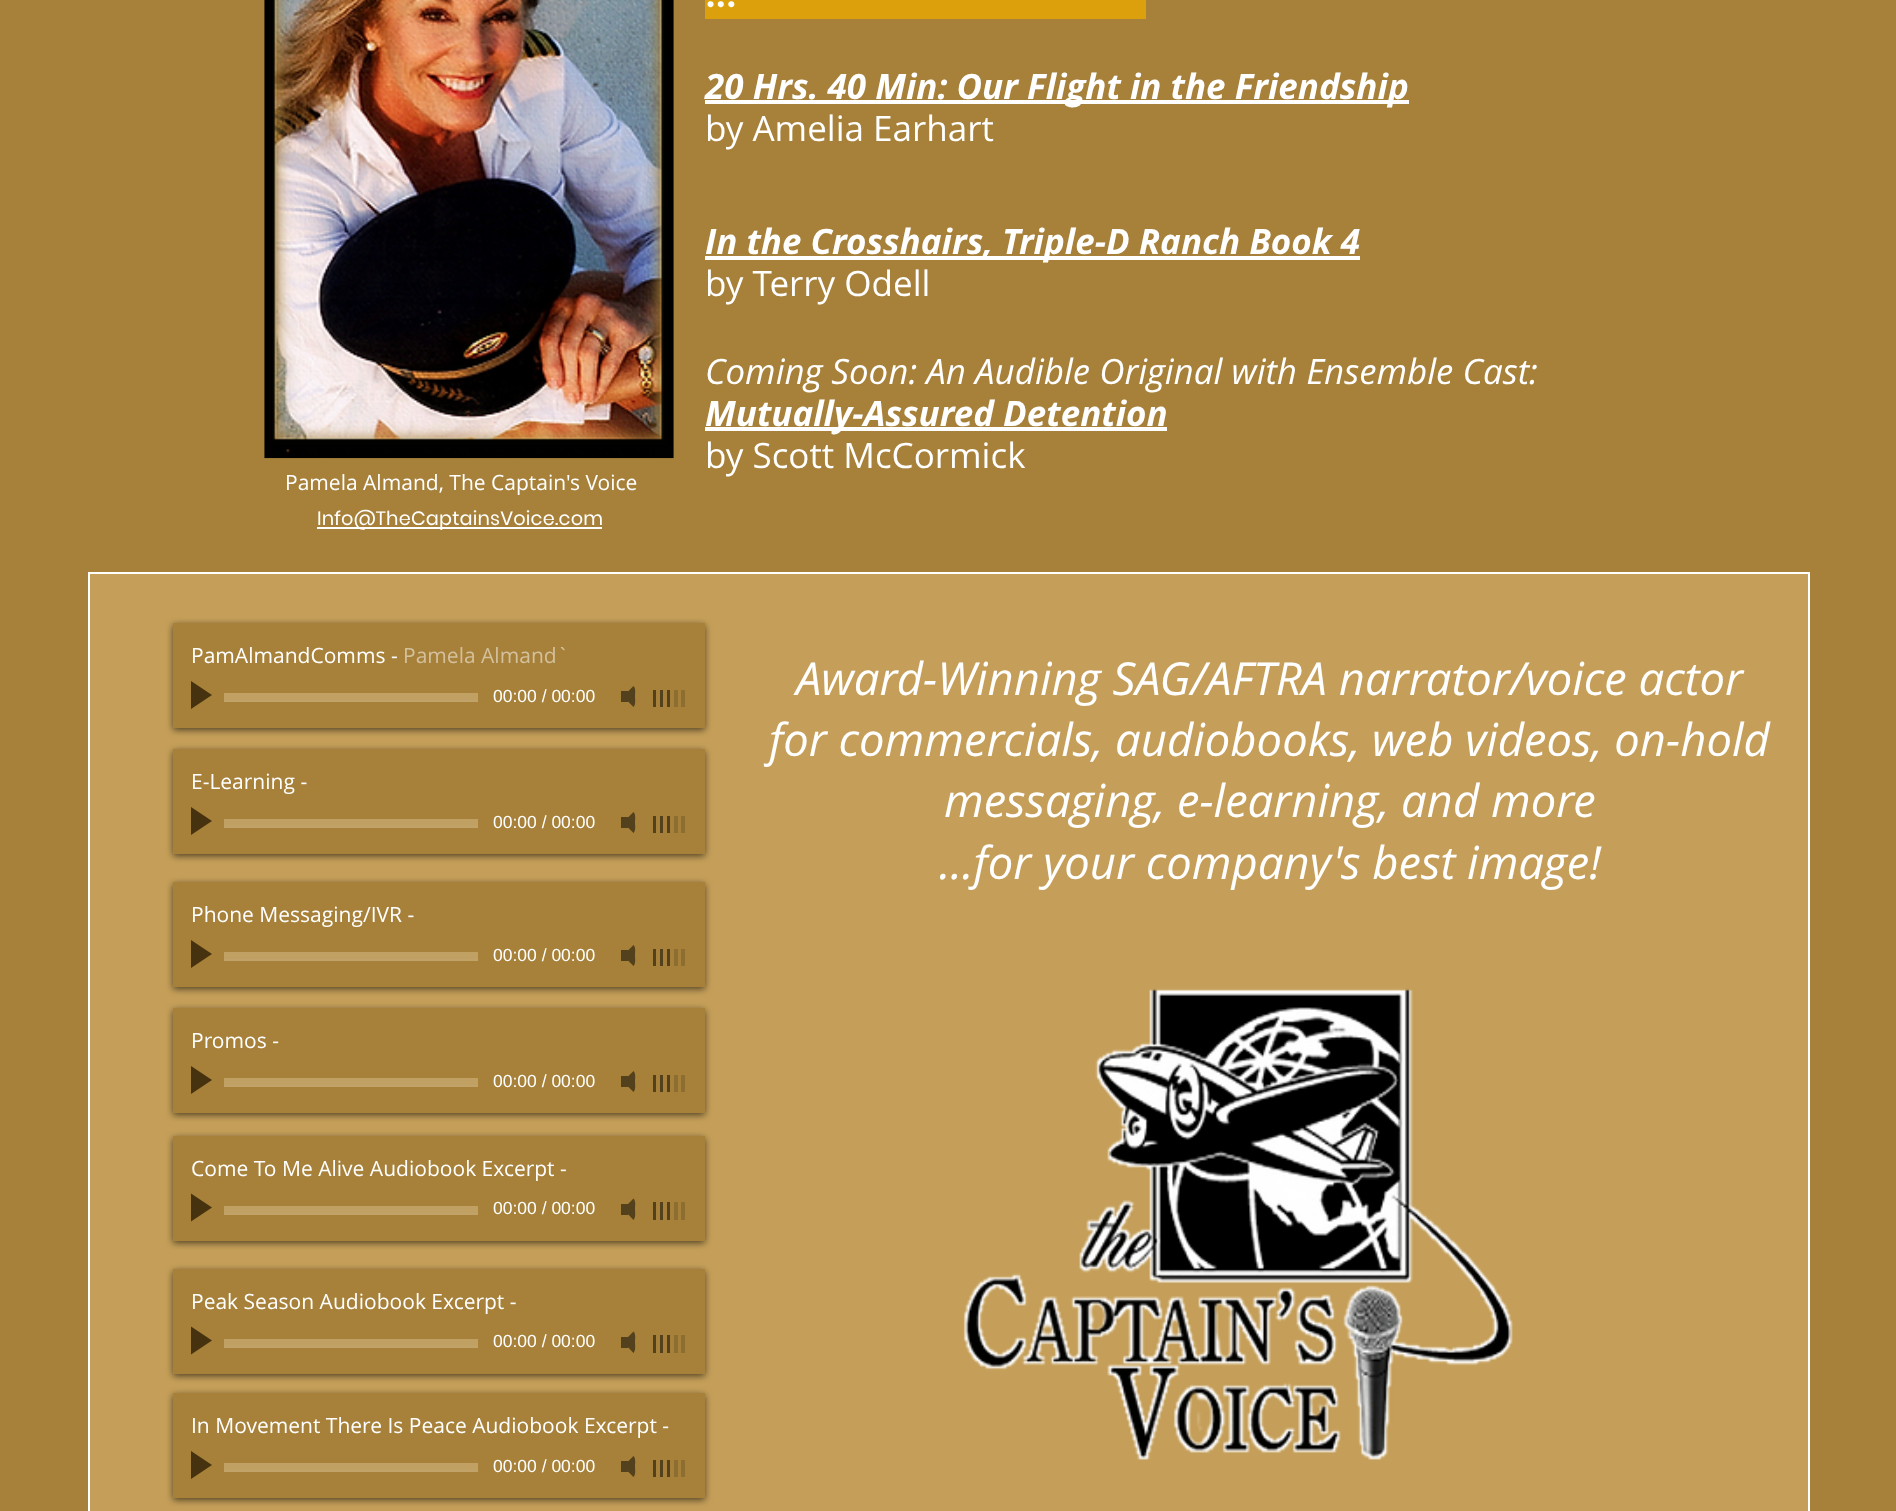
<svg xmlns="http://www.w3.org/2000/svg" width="1896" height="1511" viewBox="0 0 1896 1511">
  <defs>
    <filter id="blur1" x="-50%" y="-200%" width="200%" height="500%"><feGaussianBlur stdDeviation="3.5"/></filter>
  </defs>
  <rect width="100%" height="100%" fill="#a78039"/>
  <image x="264" y="0" width="410" height="459" href="img1.png"/>
  <rect x="705" y="0" width="441" height="19" fill="#dba00b"/>
  <text x="705" y="7" font-family="Forum" font-size="49" font-weight="bold" letter-spacing="0.5" fill="#ffffff">...</text>
  <rect x="705" y="100" width="704" height="4" fill="#ffffff"/>
  <text x="705" y="99" font-family="Open Sans" font-size="35" font-weight="bold" font-style="italic" fill="#ffffff">20 Hrs. 40 Min: Our Flight in the Friendship</text>
  <text x="705" y="141" font-family="Open Sans" font-size="35" fill="#ffffff">by Amelia Earhart</text>
  <rect x="705" y="256" width="655" height="4" fill="#ffffff"/>
  <text x="705" y="254" font-family="Open Sans" font-size="35" font-weight="bold" font-style="italic" fill="#ffffff">In the Crosshairs, Triple-D Ranch Book 4</text>
  <text x="705" y="296" font-family="Open Sans" font-size="35" fill="#ffffff">by Terry Odell</text>
  <text x="705" y="384" font-family="Open Sans" font-size="35" font-style="italic" fill="#ffffff">Coming Soon: An Audible Original with Ensemble Cast:</text>
  <rect x="705" y="427" width="462" height="4" fill="#ffffff"/>
  <text x="705" y="426" font-family="Open Sans" font-size="35" font-weight="bold" font-style="italic" fill="#ffffff">Mutually-Assured Detention</text>
  <text x="705" y="468" font-family="Open Sans" font-size="35" fill="#ffffff">by Scott McCormick</text>
  <text x="285" y="490" font-family="Open Sans" font-size="21" fill="#ffffff">Pamela Almand, The Captain's Voice</text>
  <rect x="317" y="527" width="285" height="2" fill="#ffffff"/>
  <text x="317" y="525" font-family="Poppins" font-size="19.25" letter-spacing="0.2" fill="#ffffff">Info@TheCaptainsVoice.com</text>
  <rect x="89" y="573" width="1720" height="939" fill="#c59f59" stroke="#ffffff" stroke-width="2"/>
  <rect x="173" y="625" width="532" height="105" fill="#000000" fill-opacity="0.6" filter="url(#blur1)"/>
  <rect x="173" y="623" width="532" height="105" fill="#a78039"/>
  <text x="191" y="663" font-family="Open Sans" font-size="21" fill="#ffffff">PamAlmandComms -</text>
  <text x="403" y="663" font-family="Open Sans" font-size="21" fill="#d3c09c">Pamela Almand`</text>
  <path d="M191 709V681L212 695Z" fill="#46320e"/>
  <rect x="224" y="693" width="254" height="7" fill="#c1a063"/>
  <rect x="224" y="700" width="254" height="2" fill="#c1a268"/>
  <text x="493" y="702" font-family="Liberation Sans" font-size="17.5" fill="#ffffff">00:00 / 00:00</text>
  <path d="M623 696.5L633.5 686C636 688.5 635 693.5 635 696.5C635 699.5 636 704.5 633.5 707Z" fill="#53401c"/>
  <rect x="621" y="691" width="7" height="11" fill="#53401c"/>
  <rect x="653" y="690" width="3" height="17" fill="#53401c"/>
  <rect x="660" y="690" width="3" height="17" fill="#53401c"/>
  <rect x="667" y="690" width="3" height="17" fill="#53401c"/>
  <rect x="674" y="690" width="4" height="17" fill="#8e6d30"/>
  <rect x="681" y="690" width="4" height="17" fill="#8e6d30"/>
  <text x="796" y="695" font-family="Open Sans" font-size="45.5" font-style="italic" fill="#ffffff">Award-Winning SAG/AFTRA narrator/voice actor</text>
  <text x="769" y="756" font-family="Open Sans" font-size="45.5" font-style="italic" fill="#ffffff">for commercials, audiobooks, web videos, on-hold</text>
  <text x="944" y="817" font-family="Open Sans" font-size="45.5" font-style="italic" fill="#ffffff">messaging, e-learning, and more</text>
  <text x="939" y="879" font-family="Open Sans" font-size="45.5" font-style="italic" fill="#ffffff">...for your company's best image!</text>
  <rect x="173" y="751" width="532" height="105" fill="#000000" fill-opacity="0.6" filter="url(#blur1)"/>
  <rect x="173" y="749" width="532" height="105" fill="#a78039"/>
  <text x="191" y="789" font-family="Open Sans" font-size="21" fill="#ffffff">E-Learning -</text>
  <path d="M191 835V807L212 821Z" fill="#46320e"/>
  <rect x="224" y="819" width="254" height="7" fill="#c1a063"/>
  <rect x="224" y="826" width="254" height="2" fill="#c1a268"/>
  <text x="493" y="828" font-family="Liberation Sans" font-size="17.5" fill="#ffffff">00:00 / 00:00</text>
  <path d="M623 822.5L633.5 812C636 814.5 635 819.5 635 822.5C635 825.5 636 830.5 633.5 833Z" fill="#53401c"/>
  <rect x="621" y="817" width="7" height="11" fill="#53401c"/>
  <rect x="653" y="816" width="3" height="17" fill="#53401c"/>
  <rect x="660" y="816" width="3" height="17" fill="#53401c"/>
  <rect x="667" y="816" width="3" height="17" fill="#53401c"/>
  <rect x="674" y="816" width="4" height="17" fill="#8e6d30"/>
  <rect x="681" y="816" width="4" height="17" fill="#8e6d30"/>
  <rect x="173" y="884" width="532" height="105" fill="#000000" fill-opacity="0.6" filter="url(#blur1)"/>
  <rect x="173" y="882" width="532" height="105" fill="#a78039"/>
  <text x="191" y="922" font-family="Open Sans" font-size="21" fill="#ffffff">Phone Messaging/IVR -</text>
  <path d="M191 968V940L212 954Z" fill="#46320e"/>
  <rect x="224" y="952" width="254" height="7" fill="#c1a063"/>
  <rect x="224" y="959" width="254" height="2" fill="#c1a268"/>
  <text x="493" y="961" font-family="Liberation Sans" font-size="17.5" fill="#ffffff">00:00 / 00:00</text>
  <path d="M623 955.5L633.5 945C636 947.5 635 952.5 635 955.5C635 958.5 636 963.5 633.5 966Z" fill="#53401c"/>
  <rect x="621" y="950" width="7" height="11" fill="#53401c"/>
  <rect x="653" y="949" width="3" height="17" fill="#53401c"/>
  <rect x="660" y="949" width="3" height="17" fill="#53401c"/>
  <rect x="667" y="949" width="3" height="17" fill="#53401c"/>
  <rect x="674" y="949" width="4" height="17" fill="#8e6d30"/>
  <rect x="681" y="949" width="4" height="17" fill="#8e6d30"/>
  <rect x="173" y="1010" width="532" height="105" fill="#000000" fill-opacity="0.6" filter="url(#blur1)"/>
  <rect x="173" y="1008" width="532" height="105" fill="#a78039"/>
  <text x="191" y="1048" font-family="Open Sans" font-size="21" fill="#ffffff">Promos -</text>
  <path d="M191 1094V1066L212 1080Z" fill="#46320e"/>
  <rect x="224" y="1078" width="254" height="7" fill="#c1a063"/>
  <rect x="224" y="1085" width="254" height="2" fill="#c1a268"/>
  <text x="493" y="1087" font-family="Liberation Sans" font-size="17.5" fill="#ffffff">00:00 / 00:00</text>
  <path d="M623 1081.5L633.5 1071C636 1073.5 635 1078.5 635 1081.5C635 1084.5 636 1089.5 633.5 1092Z" fill="#53401c"/>
  <rect x="621" y="1076" width="7" height="11" fill="#53401c"/>
  <rect x="653" y="1075" width="3" height="17" fill="#53401c"/>
  <rect x="660" y="1075" width="3" height="17" fill="#53401c"/>
  <rect x="667" y="1075" width="3" height="17" fill="#53401c"/>
  <rect x="674" y="1075" width="4" height="17" fill="#8e6d30"/>
  <rect x="681" y="1075" width="4" height="17" fill="#8e6d30"/>
  <image x="963" y="988" width="550" height="472" href="img2.png"/>
  <rect x="173" y="1138" width="532" height="105" fill="#000000" fill-opacity="0.6" filter="url(#blur1)"/>
  <rect x="173" y="1136" width="532" height="105" fill="#a78039"/>
  <text x="191" y="1176" font-family="Open Sans" font-size="21" fill="#ffffff">Come To Me Alive Audiobook Excerpt -</text>
  <path d="M191 1221.5V1193.5L212 1207.5Z" fill="#46320e"/>
  <rect x="224" y="1206" width="254" height="7" fill="#c1a063"/>
  <rect x="224" y="1213" width="254" height="2" fill="#c1a268"/>
  <text x="493" y="1214" font-family="Liberation Sans" font-size="17.5" fill="#ffffff">00:00 / 00:00</text>
  <path d="M633.5 1198.5C636 1201 635 1206 635 1209C635 1212 636 1217 633.5 1220L623 1209Z" fill="#53401c"/>
  <rect x="621" y="1204" width="7" height="11" fill="#53401c"/>
  <rect x="653" y="1202" width="3" height="18" fill="#53401c"/>
  <rect x="660" y="1202" width="3" height="18" fill="#53401c"/>
  <rect x="667" y="1202" width="3" height="18" fill="#53401c"/>
  <rect x="674" y="1202" width="4" height="18" fill="#8e6d30"/>
  <rect x="681" y="1202" width="4" height="18" fill="#8e6d30"/>
  <rect x="173" y="1271" width="532" height="105" fill="#000000" fill-opacity="0.6" filter="url(#blur1)"/>
  <rect x="173" y="1269" width="532" height="105" fill="#a78039"/>
  <text x="191" y="1309" font-family="Open Sans" font-size="21" fill="#ffffff">Peak Season Audiobook Excerpt -</text>
  <path d="M191 1354.5V1326.5L212 1340.5Z" fill="#46320e"/>
  <rect x="224" y="1339" width="254" height="7" fill="#c1a063"/>
  <rect x="224" y="1346" width="254" height="2" fill="#c1a268"/>
  <text x="493" y="1347" font-family="Liberation Sans" font-size="17.5" fill="#ffffff">00:00 / 00:00</text>
  <path d="M633.5 1331.5C636 1334 635 1339 635 1342C635 1345 636 1350 633.5 1353L623 1342Z" fill="#53401c"/>
  <rect x="621" y="1337" width="7" height="11" fill="#53401c"/>
  <rect x="653" y="1335" width="3" height="18" fill="#53401c"/>
  <rect x="660" y="1335" width="3" height="18" fill="#53401c"/>
  <rect x="667" y="1335" width="3" height="18" fill="#53401c"/>
  <rect x="674" y="1335" width="4" height="18" fill="#8e6d30"/>
  <rect x="681" y="1335" width="4" height="18" fill="#8e6d30"/>
  <rect x="173" y="1395" width="532" height="105" fill="#000000" fill-opacity="0.6" filter="url(#blur1)"/>
  <rect x="173" y="1393" width="532" height="105" fill="#a78039"/>
  <text x="191" y="1433" font-family="Open Sans" font-size="21" fill="#ffffff">In Movement There Is Peace Audiobook Excerpt -</text>
  <path d="M191 1479V1451L212 1465Z" fill="#46320e"/>
  <rect x="224" y="1463" width="254" height="7" fill="#c1a063"/>
  <rect x="224" y="1470" width="254" height="2" fill="#c1a268"/>
  <text x="493" y="1472" font-family="Liberation Sans" font-size="17.5" fill="#ffffff">00:00 / 00:00</text>
  <path d="M623 1466.5L633.5 1456C636 1458.5 635 1463.5 635 1466.5C635 1469.5 636 1474.5 633.5 1477Z" fill="#53401c"/>
  <rect x="621" y="1461" width="7" height="11" fill="#53401c"/>
  <rect x="653" y="1460" width="3" height="17" fill="#53401c"/>
  <rect x="660" y="1460" width="3" height="17" fill="#53401c"/>
  <rect x="667" y="1460" width="3" height="17" fill="#53401c"/>
  <rect x="674" y="1460" width="4" height="17" fill="#8e6d30"/>
  <rect x="681" y="1460" width="4" height="17" fill="#8e6d30"/>
</svg>
